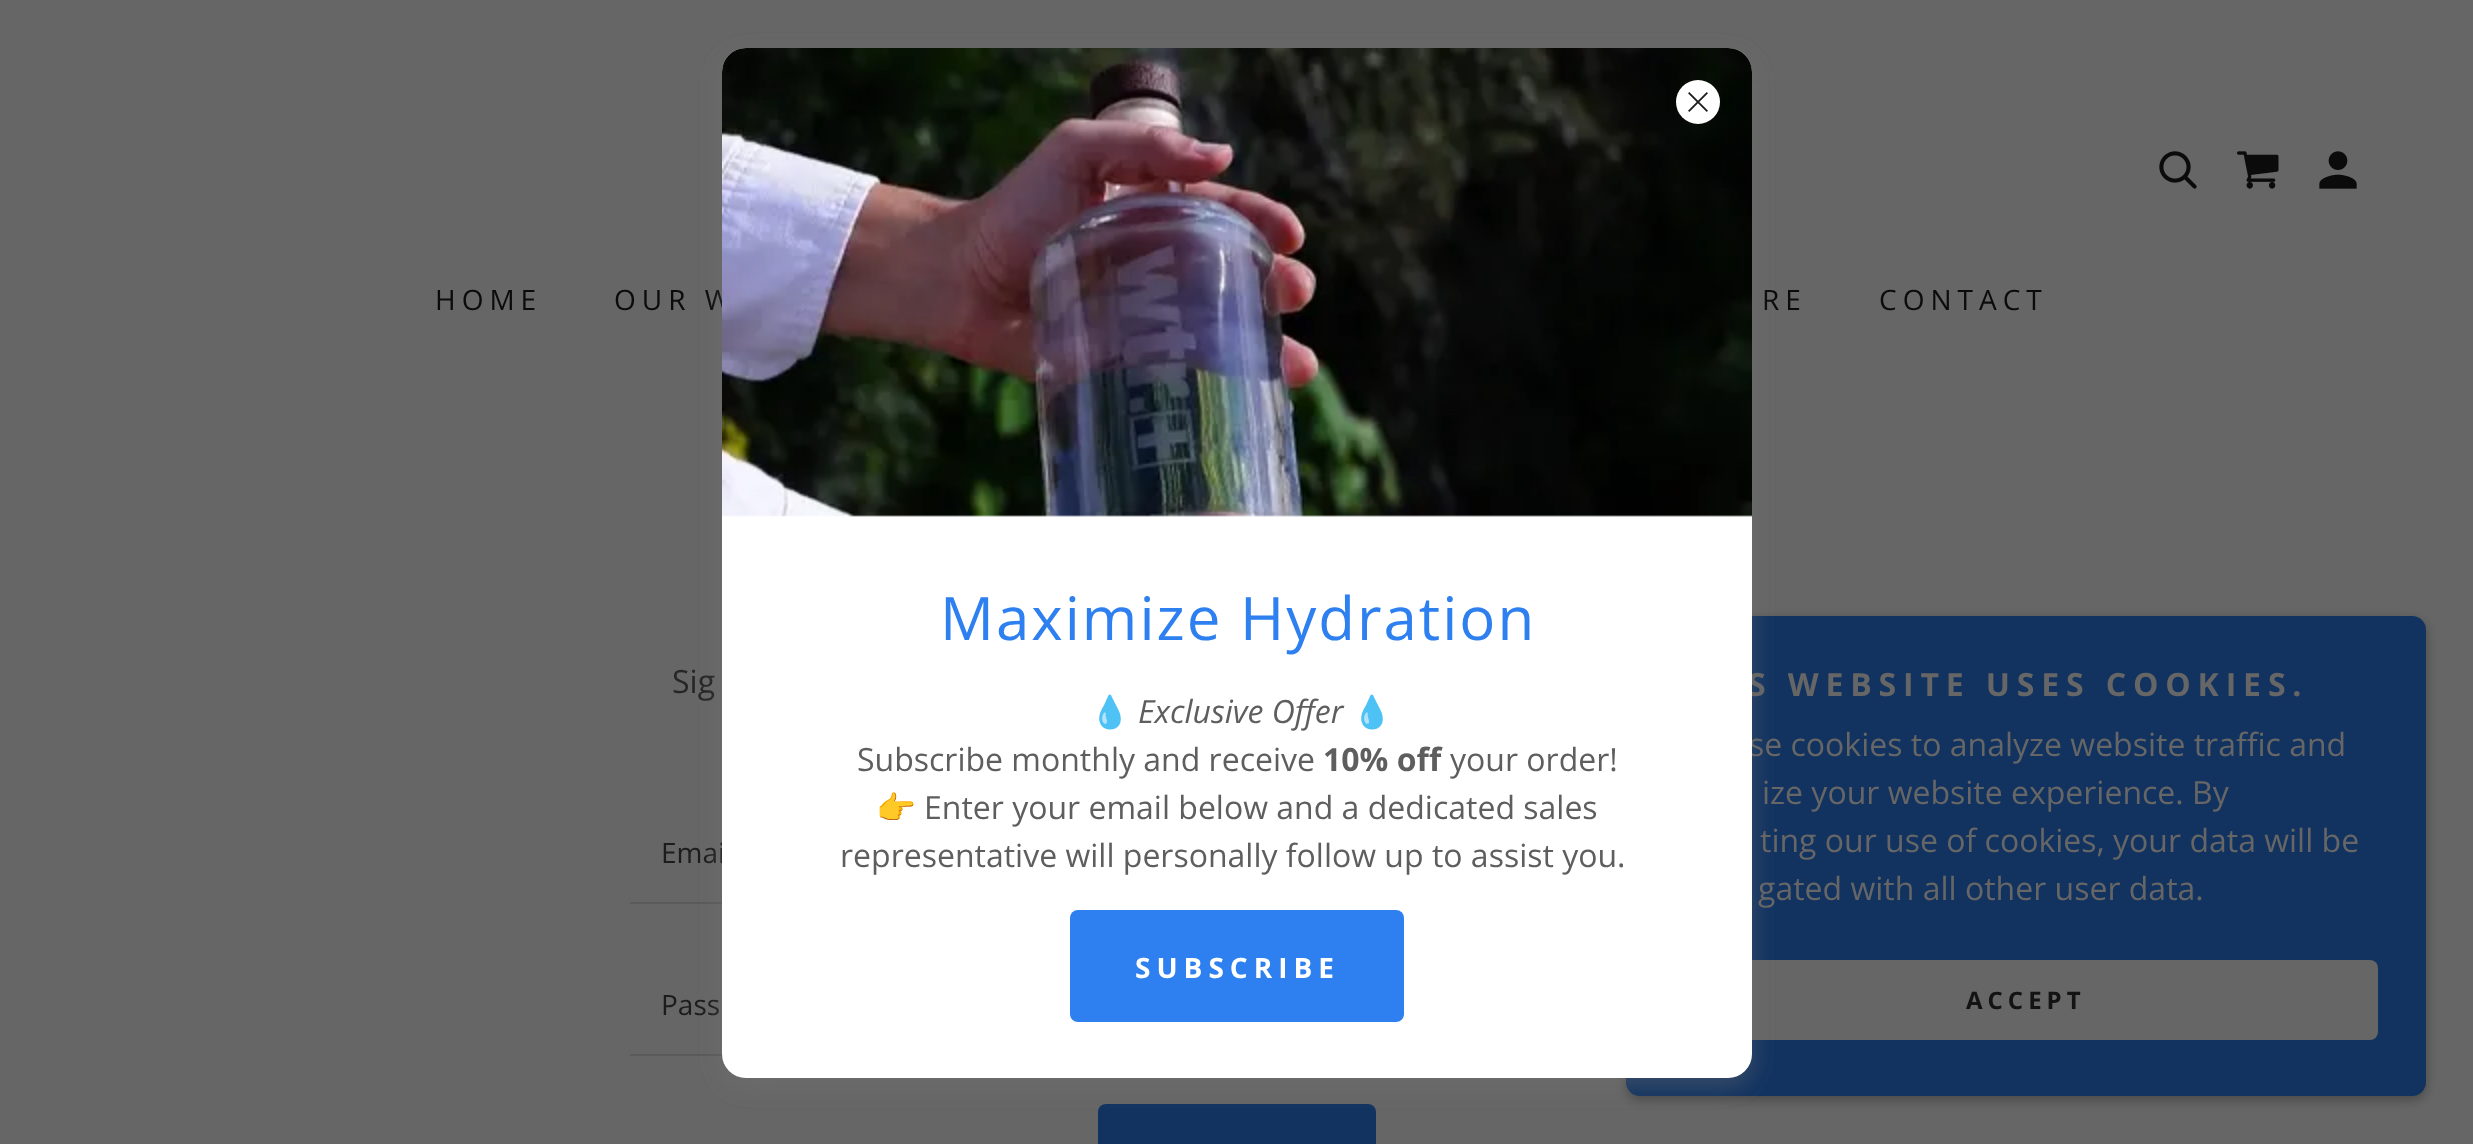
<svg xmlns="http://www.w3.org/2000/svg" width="2473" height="1144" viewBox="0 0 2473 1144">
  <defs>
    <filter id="blur1" x="-50%" y="-200%" width="200%" height="500%"><feGaussianBlur stdDeviation="6"/></filter>
    <filter id="blur2" x="-50%" y="-200%" width="200%" height="500%"><feGaussianBlur stdDeviation="12"/></filter>
  </defs>
  <rect width="100%" height="100%" fill="#666666"/>
  <image x="2159" y="151" width="38" height="38" href="img1.png"/>
  <image x="2237" y="151" width="42" height="38" href="img2.png"/>
  <image x="2319" y="151" width="38" height="38" href="img3.png"/>
  <text x="435" y="310" font-family="Open Sans" font-size="28" letter-spacing="6" fill="#0b0b0b">HOME</text>
  <text x="614" y="310" font-family="Open Sans" font-size="28" letter-spacing="6" fill="#0b0b0b">OUR W</text>
  <text x="1762" y="310" font-family="Open Sans" font-size="28" letter-spacing="6" fill="#0b0b0b">RE</text>
  <text x="1879" y="310" font-family="Open Sans" font-size="28" letter-spacing="6" fill="#0b0b0b">CONTACT</text>
  <text x="672" y="693" font-family="Open Sans" font-size="32" fill="#262626">Sig</text>
  <rect x="630" y="902" width="92" height="2" fill="#5a5a5a"/>
  <text x="661" y="863" font-family="Open Sans" font-size="28" fill="#1c1c1c">Emai</text>
  <rect x="630" y="1054" width="93" height="2" fill="#5a5a5a"/>
  <text x="661" y="1015" font-family="Open Sans" font-size="28" fill="#1c1c1c">Pass</text>
  <rect x="1098" y="1104" width="278" height="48" rx="8" fill="#123360"/>
  <rect x="1626" y="620" width="800" height="480" rx="14" fill="#000000" fill-opacity="0.3" filter="url(#blur1)"/>
  <rect x="1626" y="616" width="800" height="480" rx="14" fill="#123360"/>
  <rect x="1674" y="960" width="704" height="80" rx="8" fill="#666666"/>
  <rect x="722" y="56" width="1030" height="1030" rx="24" fill="#757575" fill-opacity="0.4" filter="url(#blur2)"/>
  <text x="1748" y="696" font-family="Open Sans" font-size="32" font-weight="bold" letter-spacing="6.85" fill="#666666">S WEBSITE USES COOKIES.</text>
  <text x="1749" y="756" font-family="Open Sans" font-size="32" fill="#666666">se cookies to analyze website traffic and</text>
  <rect x="722" y="48" width="1030" height="1030" rx="24" fill="#ffffff"/>
  <image x="722" y="48" width="1030" height="469" href="img5.png"/>
  <circle cx="1698" cy="102" r="22" fill="#ffffff"/>
  <image x="1688" y="92" width="20" height="20" href="img4.png"/>
  <text x="940" y="640" font-family="Open Sans" font-size="60" letter-spacing="2" fill="#2e80f0">Maximize Hydration</text>
  <text x="1090" y="723" font-family="Noto Color Emoji" font-size="32" fill="#5e5e5e">💧</text>
  <text x="1138" y="723" font-family="Open Sans" font-size="32" font-style="italic" fill="#5e5e5e">Exclusive Offer</text>
  <text x="1352" y="723" font-family="Noto Color Emoji" font-size="32" fill="#5e5e5e">💧</text>
  <text x="857" y="771" font-family="Open Sans" font-size="32" fill="#5e5e5e">Subscribe monthly and receive</text>
  <text x="1323" y="771" font-family="Open Sans" font-size="32" font-weight="bold" fill="#5e5e5e">10% off</text>
  <text x="1450" y="771" font-family="Open Sans" font-size="32" fill="#5e5e5e">your order!</text>
  <text x="876" y="819" font-family="Noto Color Emoji" font-size="32" fill="#5e5e5e">👉</text>
  <text x="924" y="819" font-family="Open Sans" font-size="32" fill="#5e5e5e">Enter your email below and a dedicated sales</text>
  <text x="840" y="867" font-family="Open Sans" font-size="32" fill="#5e5e5e">representative will personally follow up to assist you.</text>
  <rect x="1070" y="910" width="334" height="112" rx="8" fill="#2e80f0"/>
  <text x="1135" y="978" font-family="Open Sans" font-size="28" font-weight="bold" letter-spacing="6" fill="#ffffff">SUBSCRIBE</text>
  <text x="1762" y="804" font-family="Open Sans" font-size="32" fill="#666666">ize your website experience. By</text>
  <text x="1760" y="852" font-family="Open Sans" font-size="32" fill="#666666">ting our use of cookies, your data will be</text>
  <text x="1758" y="900" font-family="Open Sans" font-size="32" fill="#666666">gated with all other user data.</text>
  <text x="1966" y="1009" font-family="Open Sans" font-size="24" font-weight="bold" letter-spacing="5" fill="#131313">ACCEPT</text>
</svg>
